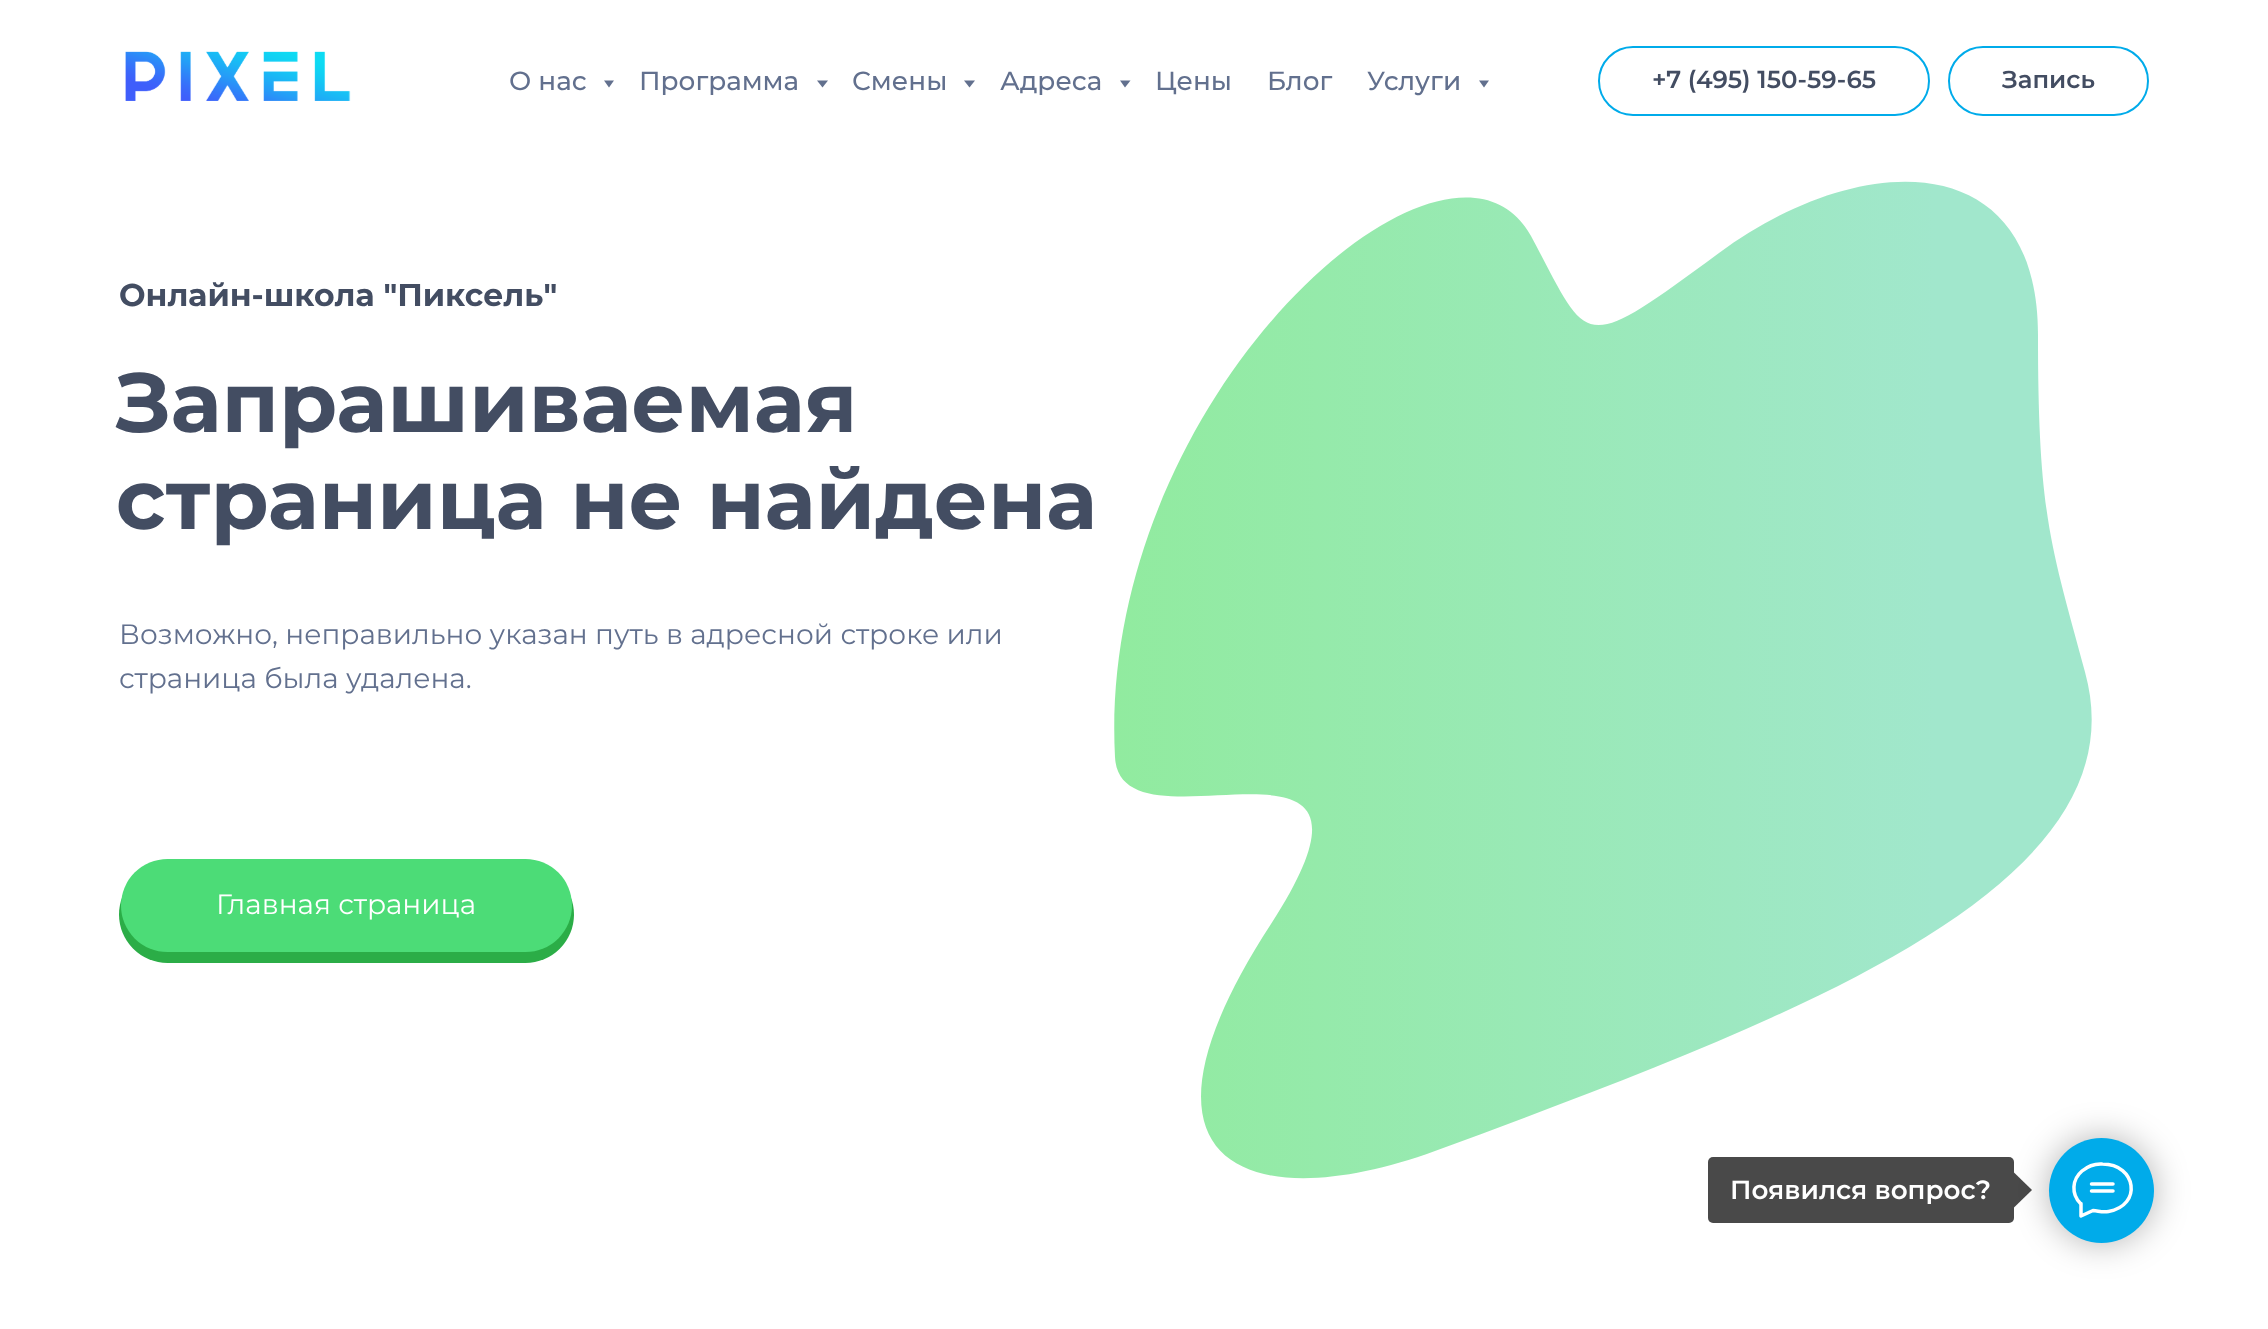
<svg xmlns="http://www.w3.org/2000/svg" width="2268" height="1329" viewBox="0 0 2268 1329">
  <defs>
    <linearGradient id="g1" gradientUnits="userSpaceOnUse" x1="1114" y1="680" x2="2092" y2="680"><stop offset="0" stop-color="#91eb9f"/><stop offset="0.84" stop-color="#a1e7cc"/></linearGradient>
    <filter id="blur1" x="-50%" y="-200%" width="200%" height="500%"><feGaussianBlur stdDeviation="17.5"/></filter>
    <clipPath id="clip1"><rect x="121" y="859" width="451" height="93" rx="46.5"/></clipPath>
  </defs>
  <rect width="100%" height="100%" fill="#ffffff"/>
  <image x="125" y="51" width="226" height="50" href="img1.png"/>
  <text x="509" y="90" font-family="Montserrat" font-size="26.25" font-weight="500" fill="#62708e">О нас</text>
  <path d="M604 80.5H614L609 87.5Z" fill="#62708e"/>
  <text x="639" y="90" font-family="Montserrat" font-size="26.25" font-weight="500" fill="#62708e">Программа</text>
  <path d="M817 80.5H828L822.5 87.5Z" fill="#62708e"/>
  <text x="852" y="90" font-family="Montserrat" font-size="26.25" font-weight="500" fill="#62708e">Смены</text>
  <path d="M964 80.5H975L969.5 87.5Z" fill="#62708e"/>
  <text x="1000" y="90" font-family="Montserrat" font-size="26.25" font-weight="500" fill="#62708e">Адреса</text>
  <path d="M1120 80.5H1130.5L1125 87.5Z" fill="#62708e"/>
  <text x="1155" y="90" font-family="Montserrat" font-size="26.25" font-weight="500" fill="#62708e">Цены</text>
  <text x="1267" y="90" font-family="Montserrat" font-size="26.25" font-weight="500" fill="#62708e">Блог</text>
  <text x="1367" y="90" font-family="Montserrat" font-size="26.25" font-weight="500" fill="#62708e">Услуги</text>
  <path d="M1479 80.5H1489L1484 87.5Z" fill="#62708e"/>
  <rect x="1599" y="47" width="330" height="68" rx="34" fill="none" stroke="#00abea" stroke-width="2"/>
  <text x="1652" y="88" font-family="Montserrat" font-size="24.5" font-weight="600" fill="#434d62">+7 (495) 150-59-65</text>
  <rect x="1949" y="47" width="199" height="68" rx="34" fill="none" stroke="#00abea" stroke-width="2"/>
  <text x="2002" y="88" font-family="Montserrat" font-size="24.5" font-weight="600" fill="#434d62">Запись</text>
  <path d="M1531 236C1590 346 1578 357 1719 253C1860 149 2038 145 2038 335C2038 517 2051 545 2085 672C2144 885 1803 1015 1435 1151C1260 1215 1107 1176 1271 924C1419 695 1120 863 1115 757C1096 398 1449 86 1531 236Z" fill="url(#g1)"/>
  <rect x="1708" y="1157" width="306" height="66" rx="5" fill="#494949"/>
  <text x="1730" y="1199" font-family="Montserrat" font-size="26.25" font-weight="600" fill="#ffffff">Появился вопрос?</text>
  <path d="M2014 1207.5V1172.5L2032 1190Z" fill="#494949"/>
  <rect x="2049" y="1138" width="105" height="105" rx="52.5" fill="#000000" fill-opacity="0.3" filter="url(#blur1)"/>
  <circle cx="2101.5" cy="1190.5" r="52.5" fill="#00abea"/>
  <path d="M2091.5 1184H2113M2091.5 1191H2113M2080.5 1203.5C2071 1194 2072 1179.5 2082 1171C2088 1166 2095.5 1163.5 2102.5 1164C2136.5 1164 2142.5 1205.5 2108.5 1211.5C2102 1212.5 2099 1211 2093 1210.5L2081 1216V1203.5Z" fill="none" stroke="#ffffff" stroke-width="3.5" stroke-linecap="round" stroke-linejoin="round"/>
  <text x="119" y="306" font-family="Montserrat" font-size="31.5" font-weight="bold" fill="#434d62">Онлайн-школа "Пиксель"</text>
  <text x="116" y="432" font-family="Montserrat" font-size="84" font-weight="bold" fill="#434d62">Запрашиваемая</text>
  <text x="116" y="529" font-family="Montserrat" font-size="84" font-weight="bold" fill="#434d62">страница не найдена</text>
  <text x="119" y="644" font-family="Montserrat" font-size="28" fill="#62708e">Возможно, неправильно указан путь в адресной строке или</text>
  <text x="119" y="688" font-family="Montserrat" font-size="28" fill="#62708e">страница была удалена.</text>
  <rect x="119" y="866" width="455" height="97" rx="48.5" fill="#2bad47"/>
  <g clip-path="url(#clip1)">
    <rect x="119" y="858" width="455" height="96" rx="48" fill="#4cdc77"/>
  </g>
  <text x="216" y="914" font-family="Montserrat" font-size="28" fill="#ffffff">Главная страница</text>
</svg>
